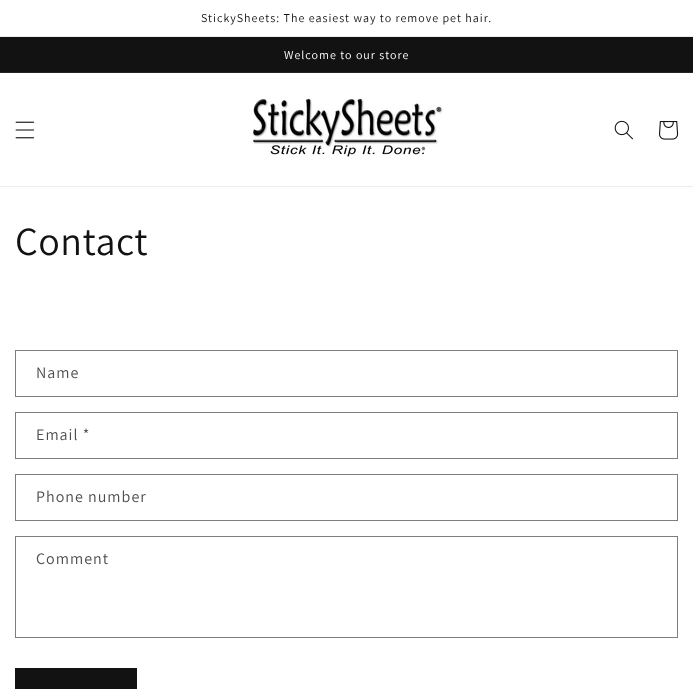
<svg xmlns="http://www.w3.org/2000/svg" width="693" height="689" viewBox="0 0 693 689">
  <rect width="100%" height="100%" fill="#ffffff"/>
  <rect x="0" y="36" width="693" height="1" fill="#ececec"/>
  <text x="201" y="22" font-family="Assistant" font-size="12" letter-spacing="1" fill="#121212">StickySheets: The easiest way to remove pet hair.</text>
  <rect x="0" y="37" width="693" height="35" fill="#121212"/>
  <rect x="0" y="72" width="693" height="1" fill="#252525"/>
  <text x="284" y="59" font-family="Assistant" font-size="12" letter-spacing="1" fill="#ffffff">Welcome to our store</text>
  <rect x="0" y="186" width="693" height="1" fill="#ececec"/>
  <image x="15" y="121" width="20" height="18" href="img1.png"/>
  <image x="251" y="95" width="192" height="64" href="img2.png"/>
  <image x="614" y="120" width="19" height="20" href="img3.png"/>
  <image x="659" y="121" width="20" height="19" href="img4.png"/>
  <text x="15" y="255" font-family="Assistant" font-size="40" letter-spacing="0.5" fill="#121212">Contact</text>
  <rect x="15.5" y="350.5" width="662" height="46" fill="none" stroke="#7d7d7d"/>
  <text x="36" y="378" font-family="Assistant" font-size="16" letter-spacing="1" fill="#4d4d4d">Name</text>
  <rect x="15.5" y="412.5" width="662" height="46" fill="none" stroke="#7d7d7d"/>
  <text x="36" y="440" font-family="Assistant" font-size="16" letter-spacing="1" fill="#4d4d4d">Email *</text>
  <rect x="15.5" y="474.5" width="662" height="46" fill="none" stroke="#7d7d7d"/>
  <text x="36" y="502" font-family="Assistant" font-size="16" letter-spacing="1" fill="#4d4d4d">Phone number</text>
  <rect x="15.5" y="536.5" width="662" height="101" fill="none" stroke="#7d7d7d"/>
  <text x="36" y="564" font-family="Assistant" font-size="16" letter-spacing="1" fill="#4d4d4d">Comment</text>
  <rect x="15" y="668" width="122" height="21" fill="#121212"/>
</svg>
